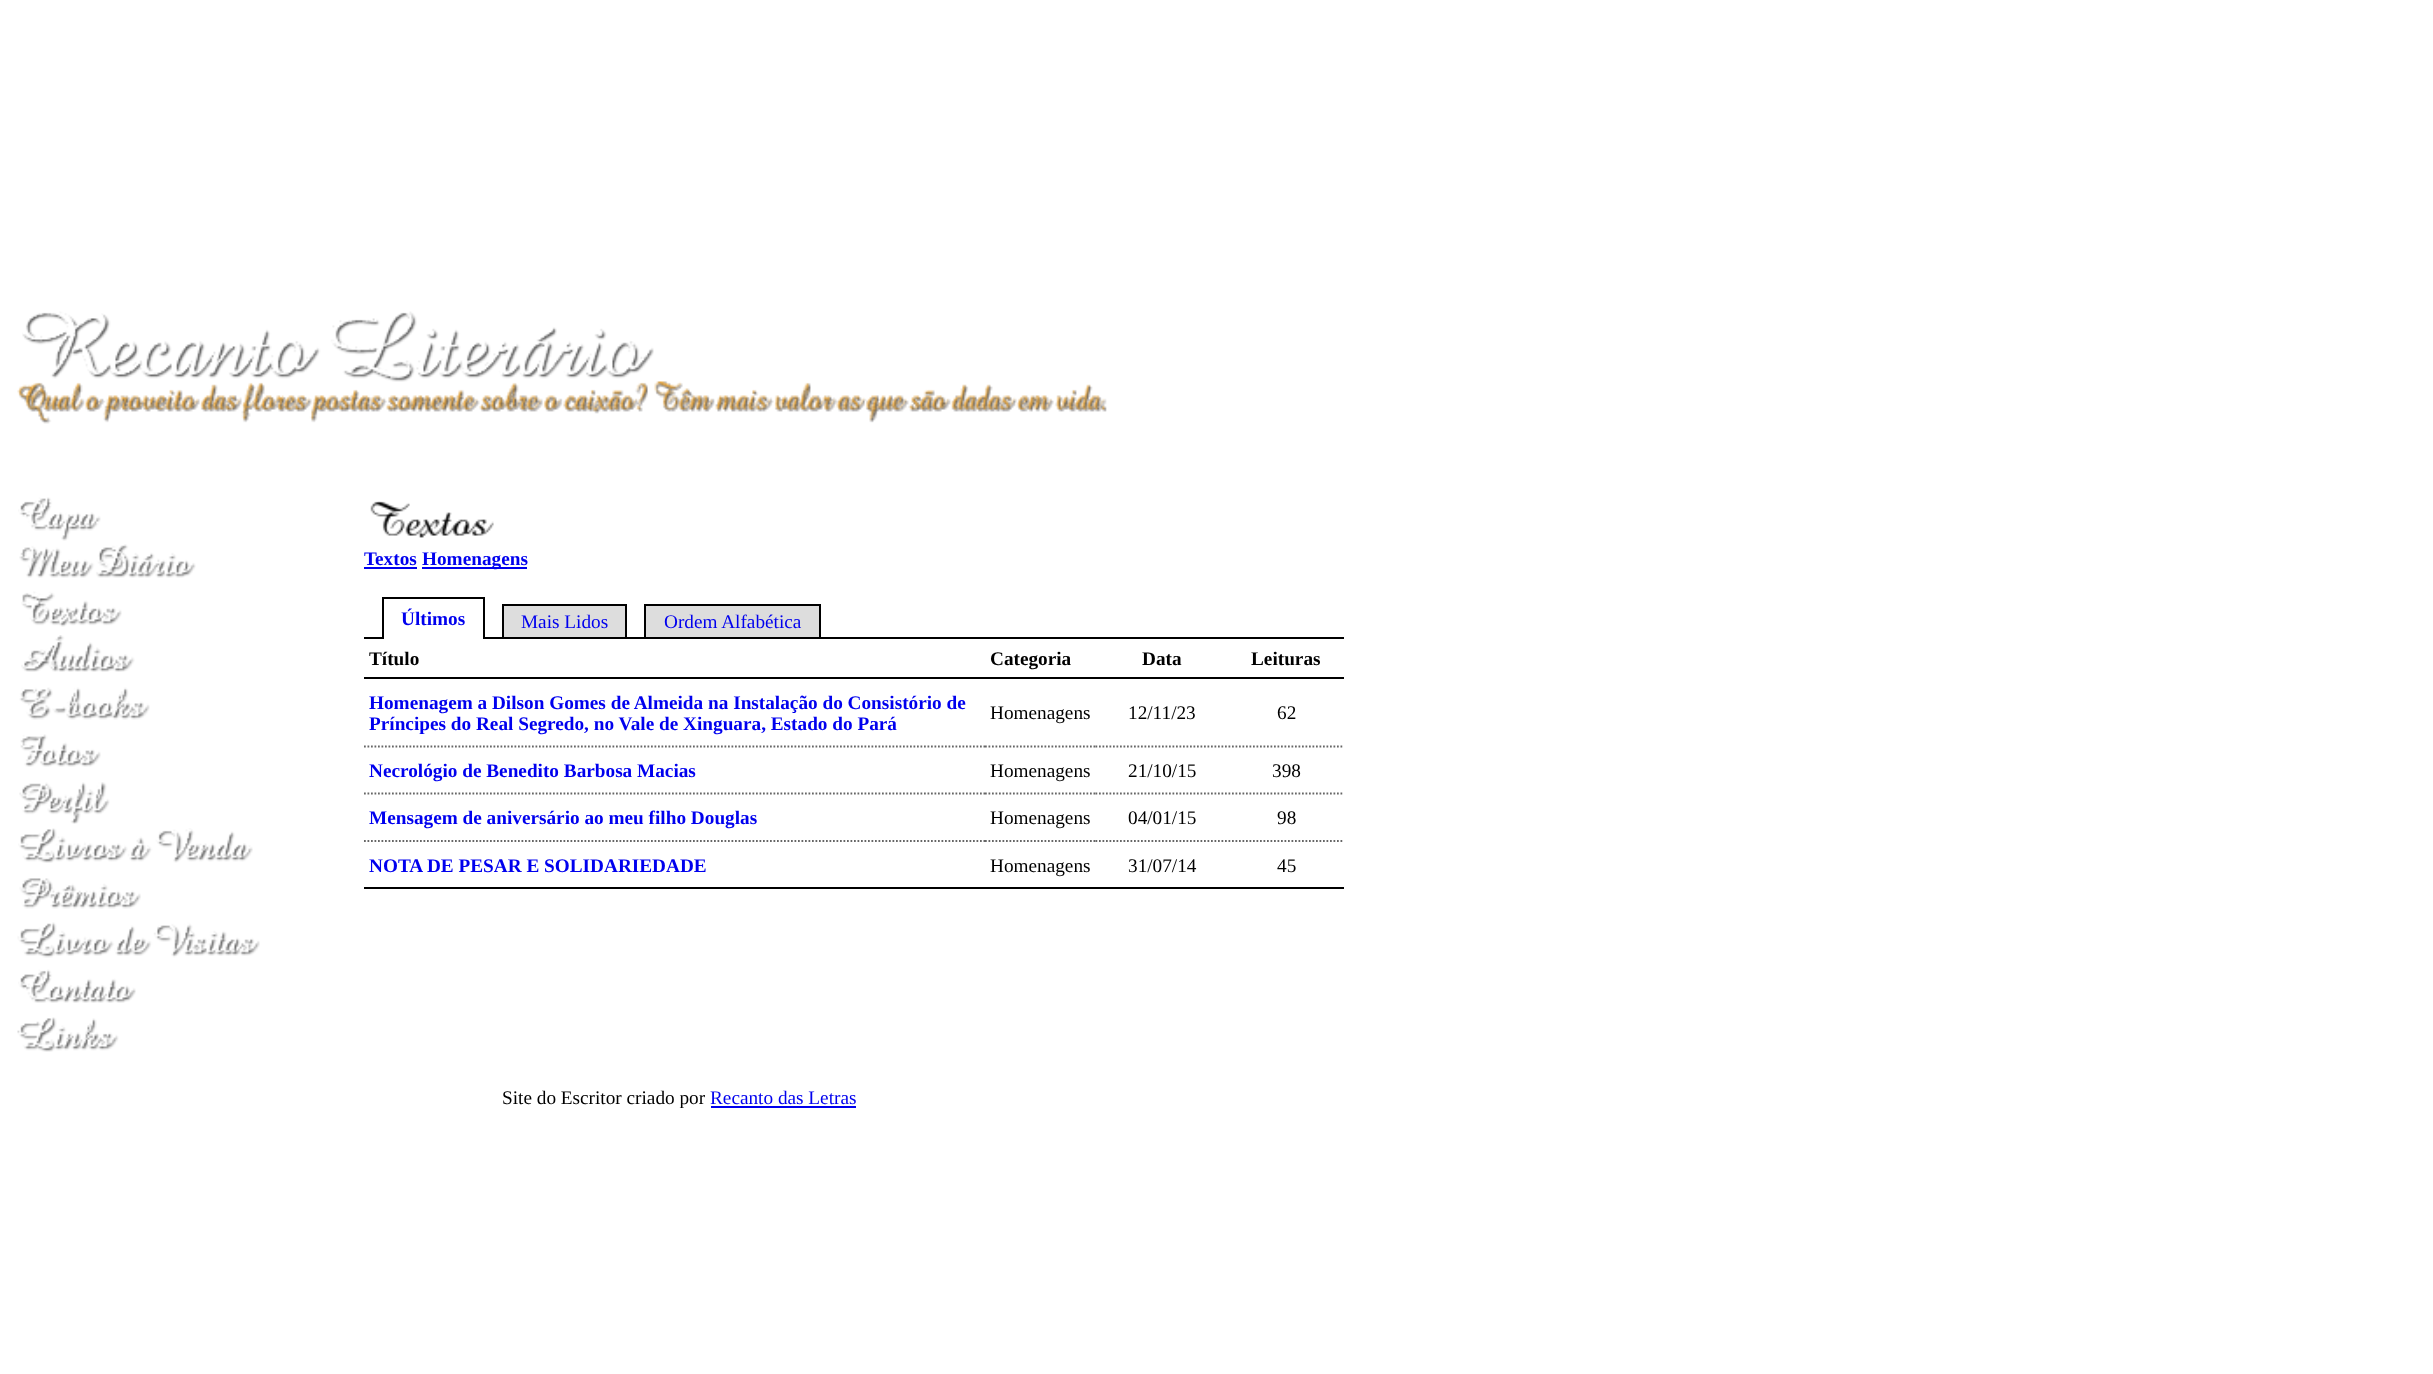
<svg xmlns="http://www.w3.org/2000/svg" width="2433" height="1374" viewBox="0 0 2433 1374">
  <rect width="100%" height="100%" fill="#ffffff"/>
  <image x="22" y="311" width="632" height="71" href="img1.png"/>
  <image x="17" y="381" width="1090" height="43" href="img2.png"/>
  <image x="18" y="497" width="83" height="44" href="img3.png"/>
  <image x="19" y="544" width="177" height="34" href="img4.png"/>
  <image x="21" y="591" width="101" height="36" href="img5.png"/>
  <image x="21" y="635" width="114" height="37" href="img6.png"/>
  <image x="19" y="687" width="131" height="33" href="img7.png"/>
  <image x="20" y="734" width="81" height="33" href="img8.png"/>
  <image x="19" y="782" width="91" height="42" href="img9.png"/>
  <image x="18" y="828" width="235" height="35" href="img10.png"/>
  <image x="19" y="878" width="122" height="31" href="img11.png"/>
  <image x="17" y="922" width="243" height="36" href="img12.png"/>
  <image x="18" y="969" width="118" height="34" href="img13.png"/>
  <image x="17" y="1017" width="102" height="35" href="img14.png"/>
  <image x="370" y="501" width="124" height="37" href="img15.png"/>
  <text x="364" y="565" font-family="Liberation Serif" font-size="19.25" font-weight="bold" fill="#0000ee">Textos</text>
  <rect x="364" y="567" width="53" height="2" fill="#0000ee"/>
  <rect x="422" y="567" width="105" height="2" fill="#0000ee"/>
  <text x="422" y="565" font-family="Liberation Serif" font-size="19.25" font-weight="bold" fill="#0000ee">Homenagens</text>
  <rect x="364" y="637" width="980" height="2" fill="#000000"/>
  <rect x="384" y="637" width="99" height="2" fill="#ffffff"/>
  <rect x="382" y="597" width="103" height="2" fill="#000000"/>
  <rect x="483" y="597" width="2" height="42" fill="#000000"/>
  <rect x="382" y="597" width="2" height="42" fill="#000000"/>
  <text x="401" y="625" font-family="Liberation Serif" font-size="19.25" font-weight="bold" fill="#0000ee">Últimos</text>
  <rect x="503" y="605" width="123" height="33" fill="#dddddd" stroke="#000000" stroke-width="2"/>
  <text x="521" y="628" font-family="Liberation Serif" font-size="19.25" fill="#0000ee">Mais Lidos</text>
  <rect x="645" y="605" width="175" height="33" fill="#dddddd" stroke="#000000" stroke-width="2"/>
  <text x="664" y="628" font-family="Liberation Serif" font-size="19.25" fill="#0000ee">Ordem Alfabética</text>
  <rect x="364" y="677" width="980" height="2" fill="#000000"/>
  <text x="369" y="665" font-family="Liberation Serif" font-size="19.25" font-weight="bold" fill="#000000">Título</text>
  <text x="990" y="665" font-family="Liberation Serif" font-size="19.25" font-weight="bold" fill="#000000">Categoria</text>
  <text x="1142" y="665" font-family="Liberation Serif" font-size="19.25" font-weight="bold" fill="#000000">Data</text>
  <text x="1251" y="665" font-family="Liberation Serif" font-size="19.25" font-weight="bold" fill="#000000">Leituras</text>
  <path d="M364 746.5H985" fill="none" stroke="#666666" stroke-width="1.8" stroke-dasharray="1.75 1.75"/>
  <text x="369" y="709" font-family="Liberation Serif" font-size="19.25" font-weight="bold" fill="#0000ee">Homenagem a Dilson Gomes de Almeida na Instalação do Consistório de</text>
  <text x="369" y="730" font-family="Liberation Serif" font-size="19.25" font-weight="bold" fill="#0000ee">Príncipes do Real Segredo, no Vale de Xinguara, Estado do Pará</text>
  <path d="M985 746.5H1095.5" fill="none" stroke="#666666" stroke-width="1.8" stroke-dasharray="1.75 1.75"/>
  <text x="990" y="719" font-family="Liberation Serif" font-size="19.25" fill="#000000">Homenagens</text>
  <path d="M1095.5 746.5H1228.5" fill="none" stroke="#666666" stroke-width="1.8" stroke-dasharray="1.75 1.75"/>
  <text x="1128" y="719" font-family="Liberation Serif" font-size="19.25" fill="#000000">12/11/23</text>
  <path d="M1228.5 746.5H1344" fill="none" stroke="#666666" stroke-width="1.8" stroke-dasharray="1.75 1.75"/>
  <text x="1277" y="719" font-family="Liberation Serif" font-size="19.25" fill="#000000">62</text>
  <path d="M364 793.5H985" fill="none" stroke="#666666" stroke-width="1.8" stroke-dasharray="1.75 1.75"/>
  <text x="369" y="777" font-family="Liberation Serif" font-size="19.25" font-weight="bold" fill="#0000ee">Necrológio de Benedito Barbosa Macias</text>
  <path d="M985 793.5H1095.5" fill="none" stroke="#666666" stroke-width="1.8" stroke-dasharray="1.75 1.75"/>
  <text x="990" y="777" font-family="Liberation Serif" font-size="19.25" fill="#000000">Homenagens</text>
  <path d="M1095.5 793.5H1228.5" fill="none" stroke="#666666" stroke-width="1.8" stroke-dasharray="1.75 1.75"/>
  <text x="1128" y="777" font-family="Liberation Serif" font-size="19.25" fill="#000000">21/10/15</text>
  <path d="M1228.5 793.5H1344" fill="none" stroke="#666666" stroke-width="1.8" stroke-dasharray="1.75 1.75"/>
  <text x="1272" y="777" font-family="Liberation Serif" font-size="19.25" fill="#000000">398</text>
  <path d="M364 841H985" fill="none" stroke="#666666" stroke-width="1.8" stroke-dasharray="1.75 1.75"/>
  <text x="369" y="824" font-family="Liberation Serif" font-size="19.25" font-weight="bold" fill="#0000ee">Mensagem de aniversário ao meu filho Douglas</text>
  <path d="M985 841H1095.5" fill="none" stroke="#666666" stroke-width="1.8" stroke-dasharray="1.75 1.75"/>
  <text x="990" y="824" font-family="Liberation Serif" font-size="19.25" fill="#000000">Homenagens</text>
  <path d="M1095.5 841H1228.5" fill="none" stroke="#666666" stroke-width="1.8" stroke-dasharray="1.75 1.75"/>
  <text x="1128" y="824" font-family="Liberation Serif" font-size="19.25" fill="#000000">04/01/15</text>
  <path d="M1228.5 841H1344" fill="none" stroke="#666666" stroke-width="1.8" stroke-dasharray="1.75 1.75"/>
  <text x="1277" y="824" font-family="Liberation Serif" font-size="19.25" fill="#000000">98</text>
  <text x="369" y="872" font-family="Liberation Serif" font-size="19.25" font-weight="bold" fill="#0000ee">NOTA DE PESAR E SOLIDARIEDADE</text>
  <text x="990" y="872" font-family="Liberation Serif" font-size="19.25" fill="#000000">Homenagens</text>
  <text x="1128" y="872" font-family="Liberation Serif" font-size="19.25" fill="#000000">31/07/14</text>
  <text x="1277" y="872" font-family="Liberation Serif" font-size="19.25" fill="#000000">45</text>
  <rect x="364" y="887" width="980" height="2" fill="#000000"/>
  <text x="502" y="1104" font-family="Liberation Serif" font-size="19.25" fill="#000000">Site do Escritor criado por</text>
  <text x="710" y="1104" font-family="Liberation Serif" font-size="19.25" fill="#0000ee">Recanto das Letras</text>
  <rect x="711" y="1106" width="145" height="2" fill="#0000ee"/>
</svg>
